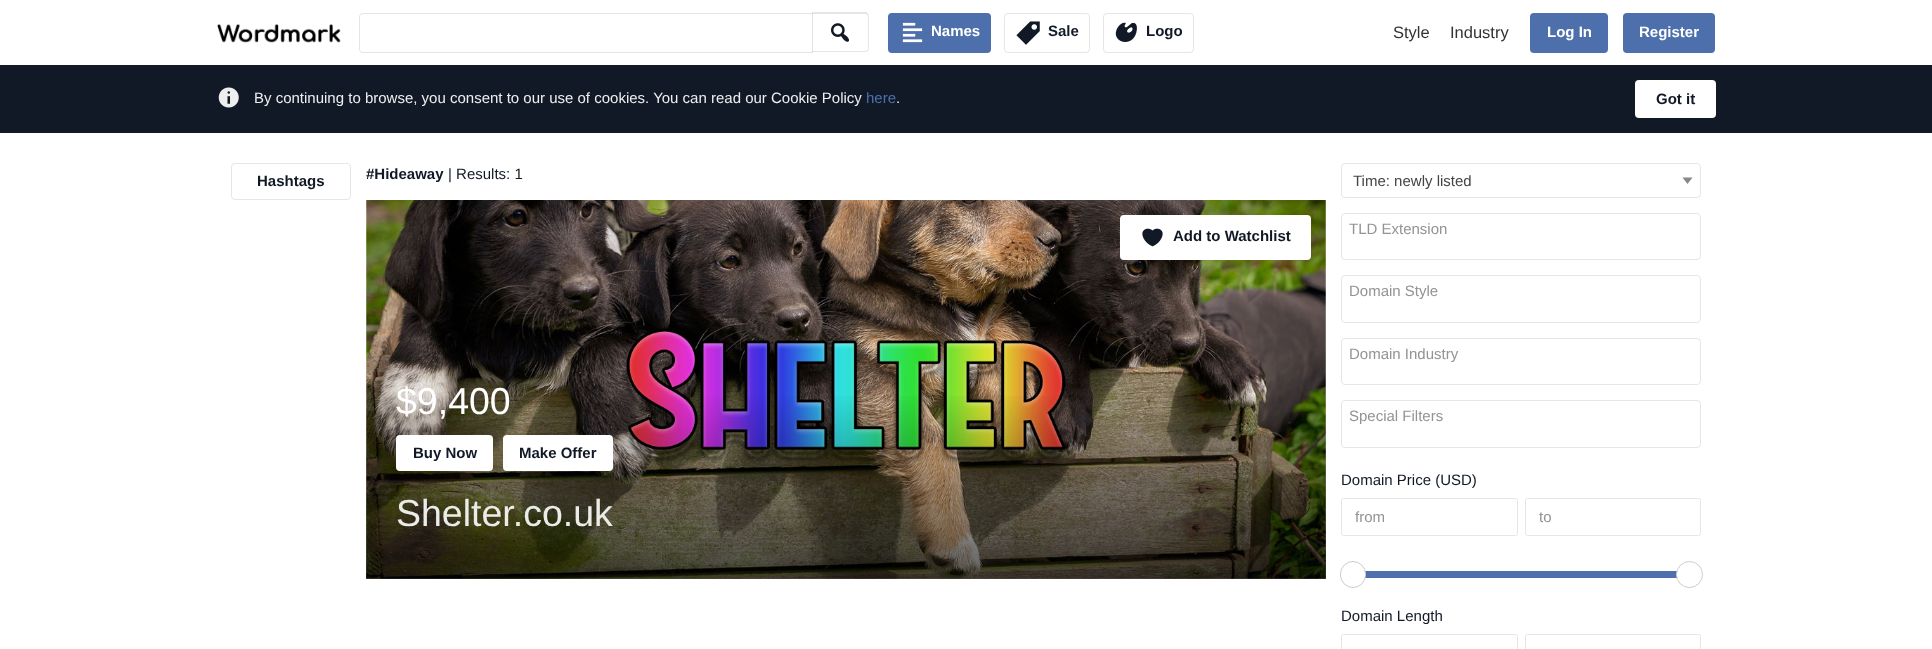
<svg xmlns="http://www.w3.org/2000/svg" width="1932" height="649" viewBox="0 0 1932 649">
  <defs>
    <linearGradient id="g1" gradientUnits="userSpaceOnUse" x1="846" y1="579" x2="846" y2="200"><stop offset="0" stop-color="#000000" stop-opacity="0.6"/><stop offset="0.5" stop-color="#000000" stop-opacity="0"/></linearGradient>
  </defs>
  <rect width="100%" height="100%" fill="#ffffff"/>
  <image x="217" y="24" width="124" height="19" href="img1.png"/>
  <path d="M812 12H865C867 12 869 14 869 16V49C869 51 867 52 865 52H812ZM812 14H865C866 14 868 15 868 16V49C868 50 866 51 865 51H812Z" fill="#e6e6e6" fill-rule="evenodd"/>
  <path d="M363 13.5H812.5V52.5H363C361 52.5 359.5 51 359.5 49V17C359.5 15 361 13.5 363 13.5Z" fill="none" stroke="#000000" stroke-opacity="0.1"/>
  <image x="831" y="23" width="18" height="19" href="img2.png"/>
  <rect x="888" y="13" width="103" height="40" rx="4" fill="#4d6fab"/>
  <image x="902" y="22" width="21" height="21" href="img3.png"/>
  <text x="931" y="36" font-family="Liberation Sans" font-size="15" font-weight="bold" fill="#ffffff">Names</text>
  <rect x="1004.5" y="13.5" width="85" height="39" rx="3.5" fill="none" stroke="#e6e6e6"/>
  <image x="1016" y="21" width="24" height="24" href="img4.png"/>
  <text x="1048" y="36" font-family="Liberation Sans" font-size="15" font-weight="bold" fill="#111926">Sale</text>
  <rect x="1103.5" y="13.5" width="90" height="39" rx="3.5" fill="none" stroke="#e6e6e6"/>
  <image x="1115" y="22" width="22" height="20" href="img5.png"/>
  <text x="1146" y="36" font-family="Liberation Sans" font-size="15" font-weight="bold" fill="#111926">Logo</text>
  <text x="1393" y="38" font-family="Liberation Sans" font-size="16.5" fill="#333333">Style</text>
  <text x="1450" y="38" font-family="Liberation Sans" font-size="16.5" fill="#333333">Industry</text>
  <rect x="1530" y="13" width="78" height="40" rx="4" fill="#4d6fab"/>
  <text x="1547" y="37" font-family="Liberation Sans" font-size="15" font-weight="bold" fill="#ffffff">Log In</text>
  <rect x="1623" y="13" width="92" height="40" rx="4" fill="#4d6fab"/>
  <text x="1639" y="37" font-family="Liberation Sans" font-size="15" font-weight="bold" fill="#ffffff">Register</text>
  <rect x="0" y="65" width="1932" height="68" fill="#111926"/>
  <image x="218" y="87" width="21" height="21" href="img6.png"/>
  <text x="254" y="103" font-family="Liberation Sans" font-size="15" fill="#eeeeee">By continuing to browse, you consent to our use of cookies. You can read our Cookie Policy</text>
  <text x="866" y="103" font-family="Liberation Sans" font-size="15" fill="#4d6fab">here</text>
  <text x="896" y="103" font-family="Liberation Sans" font-size="15" fill="#eeeeee">.</text>
  <rect x="1635" y="80" width="81" height="38" rx="4" fill="#ffffff"/>
  <text x="1656" y="104" font-family="Liberation Sans" font-size="15" font-weight="bold" fill="#111926">Got it</text>
  <rect x="231.5" y="163.5" width="119" height="36" rx="3.5" fill="none" stroke="#e6e6e6"/>
  <text x="257" y="186" font-family="Liberation Sans" font-size="15" font-weight="bold" fill="#111926">Hashtags</text>
  <text x="366" y="179" font-family="Liberation Sans" font-size="15" font-weight="bold" fill="#111926">#Hideaway</text>
  <text x="448" y="179" font-family="Liberation Sans" font-size="15" fill="#111926">| Results: 1</text>
  <image x="366" y="200" width="960" height="379" href="img7.png"/>
  <rect x="366" y="396" width="960" height="183" fill="url(#g1)"/>
  <rect x="1120" y="215" width="191" height="45" rx="4" fill="#ffffff"/>
  <image x="1142" y="228" width="21" height="19" href="img8.png"/>
  <text x="1173" y="241" font-family="Liberation Sans" font-size="15" font-weight="bold" fill="#111926">Add to Watchlist</text>
  <text x="396" y="414" font-family="Liberation Sans" font-size="37.5" fill="#ffffff">$9,400</text>
  <rect x="396" y="435" width="97" height="36" rx="4" fill="#ffffff"/>
  <text x="413" y="458" font-family="Liberation Sans" font-size="15" font-weight="bold" fill="#111926">Buy Now</text>
  <rect x="503" y="435" width="110" height="36" rx="4" fill="#ffffff"/>
  <text x="519" y="458" font-family="Liberation Sans" font-size="15" font-weight="bold" fill="#111926">Make Offer</text>
  <text x="396" y="526" font-family="Liberation Sans" font-size="37.5" fill="#ebebe8">Shelter.co.uk</text>
  <rect x="1341.5" y="163.5" width="359" height="34" rx="3.5" fill="none" stroke="#e6e6e6"/>
  <text x="1353" y="186" font-family="Liberation Sans" font-size="15" fill="#444444">Time: newly listed</text>
  <path d="M1682.5 177.5H1692.5L1687.5 184Z" fill="#888888"/>
  <rect x="1341.5" y="213.5" width="359" height="46" rx="3.5" fill="none" stroke="#e6e6e6"/>
  <text x="1349" y="234" font-family="Liberation Sans" font-size="15" fill="#939393">TLD Extension</text>
  <rect x="1341.5" y="275.5" width="359" height="47" rx="3.5" fill="none" stroke="#e6e6e6"/>
  <text x="1349" y="296" font-family="Liberation Sans" font-size="15" fill="#939393">Domain Style</text>
  <rect x="1341.5" y="338.5" width="359" height="46" rx="3.5" fill="none" stroke="#e6e6e6"/>
  <text x="1349" y="359" font-family="Liberation Sans" font-size="15" fill="#939393">Domain Industry</text>
  <rect x="1341.5" y="400.5" width="359" height="47" rx="3.5" fill="none" stroke="#e6e6e6"/>
  <text x="1349" y="421" font-family="Liberation Sans" font-size="15" fill="#939393">Special Filters</text>
  <text x="1341" y="485" font-family="Liberation Sans" font-size="15" fill="#111926">Domain Price (USD)</text>
  <rect x="1341.5" y="498.5" width="176" height="37" rx="2" fill="none" stroke="#e6e6e6"/>
  <text x="1355" y="522" font-family="Liberation Sans" font-size="15" fill="#939393">from</text>
  <rect x="1525.5" y="498.5" width="175" height="37" rx="2" fill="none" stroke="#e6e6e6"/>
  <text x="1539" y="522" font-family="Liberation Sans" font-size="15" fill="#939393">to</text>
  <rect x="1365" y="571" width="312" height="7" fill="#4d6fab"/>
  <rect x="1340.5" y="561.5" width="25" height="26" rx="12.5" fill="#ffffff" stroke="#cccccc"/>
  <circle cx="1689.5" cy="574.5" r="13" fill="#ffffff" stroke="#cccccc"/>
  <text x="1341" y="621" font-family="Liberation Sans" font-size="15" fill="#111926">Domain Length</text>
  <rect x="1341.5" y="634.5" width="176" height="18" rx="2" fill="none" stroke="#e6e6e6"/>
  <rect x="1525.5" y="634.5" width="175" height="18" rx="2" fill="none" stroke="#e6e6e6"/>
</svg>
